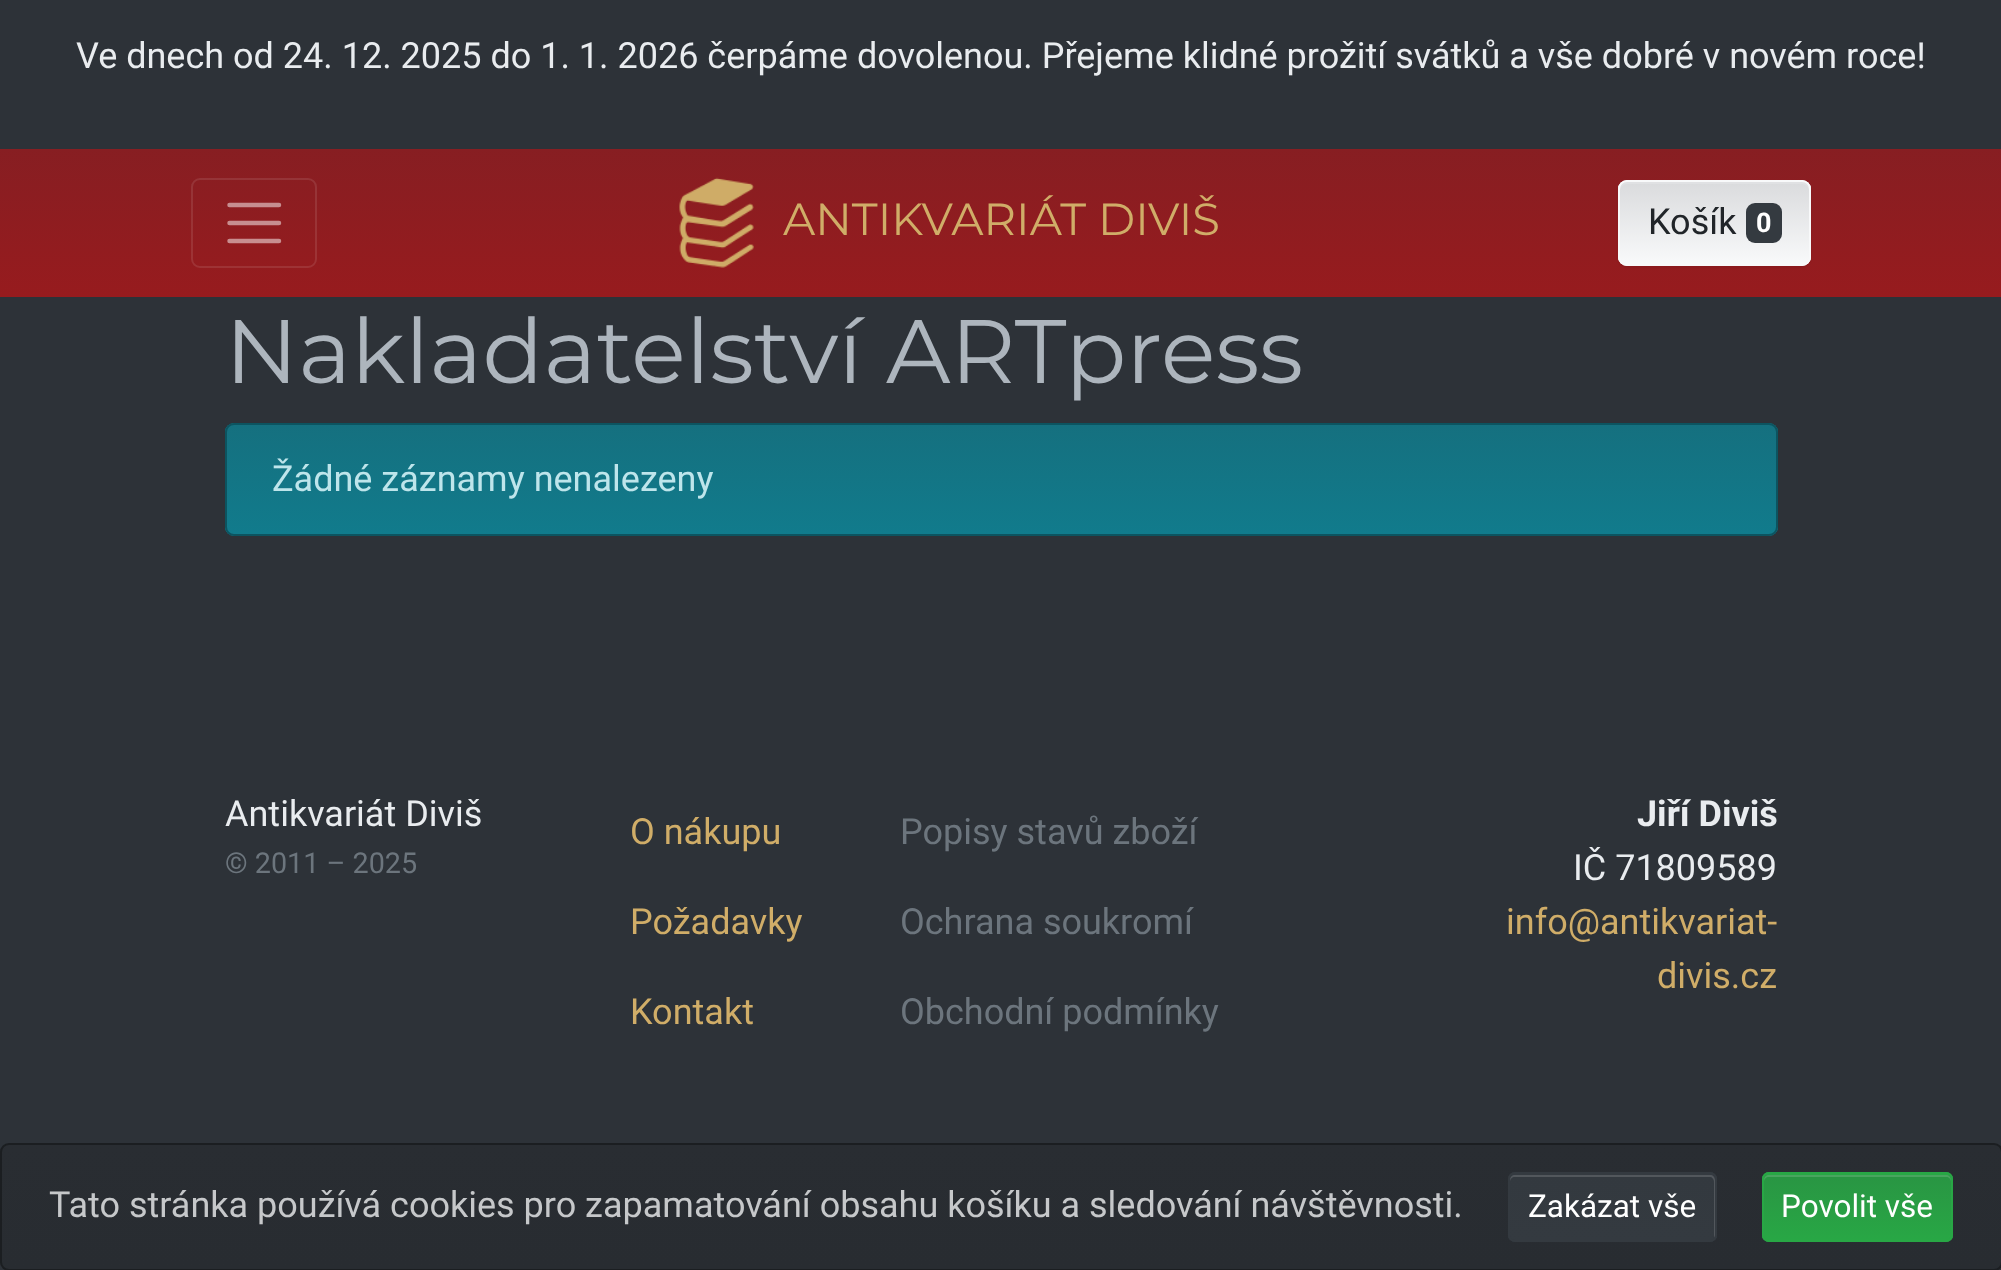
<svg xmlns="http://www.w3.org/2000/svg" width="2001" height="1270" viewBox="0 0 2001 1270">
  <defs>
    <linearGradient id="g1" gradientUnits="userSpaceOnUse" x1="1001" y1="148" x2="1001" y2="297"><stop offset="0" stop-color="#871e22"/><stop offset="1" stop-color="#971b1e"/></linearGradient>
    <filter id="blur1" x="-50%" y="-200%" width="200%" height="500%"><feGaussianBlur stdDeviation="1"/></filter>
    <clipPath id="clip1"><rect x="1618" y="180" width="193" height="86" rx="9"/></clipPath>
    <linearGradient id="g2" gradientUnits="userSpaceOnUse" x1="1715" y1="182" x2="1715" y2="263"><stop offset="0" stop-color="#dadbdd"/><stop offset="1" stop-color="#f8f9fa"/></linearGradient>
    <clipPath id="clip2"><rect x="225" y="423" width="1553" height="113" rx="9"/></clipPath>
    <linearGradient id="g3" gradientUnits="userSpaceOnUse" x1="1001" y1="425" x2="1001" y2="533"><stop offset="0" stop-color="#15707f"/><stop offset="1" stop-color="#117b8c"/></linearGradient>
    <clipPath id="clip3"><rect x="0" y="1143" width="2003" height="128" rx="9"/></clipPath>
    <linearGradient id="g4" gradientUnits="userSpaceOnUse" x1="1001" y1="1145" x2="1001" y2="1269"><stop offset="0" stop-color="#292d32"/><stop offset="1" stop-color="#282c31"/></linearGradient>
    <clipPath id="clip4"><rect x="1508" y="1172" width="209" height="70" rx="7"/></clipPath>
    <linearGradient id="g5" gradientUnits="userSpaceOnUse" x1="1612" y1="1175" x2="1612" y2="1240"><stop offset="0" stop-color="#33393f"/><stop offset="1" stop-color="#343a40"/></linearGradient>
    <clipPath id="clip5"><rect x="1762" y="1172" width="191" height="70" rx="7"/></clipPath>
    <linearGradient id="g6" gradientUnits="userSpaceOnUse" x1="1857" y1="1175" x2="1857" y2="1240"><stop offset="0" stop-color="#299543"/><stop offset="1" stop-color="#28a745"/></linearGradient>
  </defs>
  <rect width="100%" height="100%" fill="#2d3238"/>
  <text x="76" y="68" font-family="Roboto" font-size="36" fill="#e9ecef">Ve dnech od 24. 12. 2025 do 1. 1. 2026 čerpáme dovolenou. Přejeme klidné prožití svátků a vše dobré v novém roce!</text>
  <rect x="0" y="149" width="2001" height="148" fill="url(#g1)"/>
  <rect x="192" y="179" width="124" height="88" rx="8" fill="none" stroke="#ffffff" stroke-opacity="0.1" stroke-width="2"/>
  <path d="M229.5 205H279M229.5 223H279M229.5 241H279" fill="none" stroke="#ffffff" stroke-opacity="0.5" stroke-width="4.5" stroke-linecap="round"/>
  <image x="679" y="177" width="75" height="91" href="img1.png"/>
  <text x="783" y="235" font-family="Montserrat" font-size="45" font-weight="100" fill="#d0ad68">ANTIKVARIÁT DIVIŠ</text>
  <rect x="1618" y="182" width="193" height="86" rx="9" fill="#000000" fill-opacity="0.07" filter="url(#blur1)"/>
  <rect x="1618" y="180" width="193" height="86" rx="9" fill="#f8f9fa"/>
  <g clip-path="url(#clip1)">
    <rect x="1618" y="182" width="193" height="81" fill="url(#g2)"/>
  </g>
  <path d="M1627 184H1802C1806 184 1809 188 1809 191V189C1809 185 1806 182 1802 182H1627C1623 182 1620 185 1620 189V191C1620 188 1623 184 1627 184Z" fill="#e0e1e3"/>
  <rect x="1619" y="181" width="191" height="84" rx="8" fill="none" stroke="#f8f9fa" stroke-width="2"/>
  <text x="1648" y="234" font-family="Roboto" font-size="36" fill="#212529">Košík</text>
  <rect x="1746" y="203" width="36" height="40" rx="9" fill="#343a40"/>
  <text x="1756" y="232" font-family="Roboto" font-size="27" font-weight="bold" fill="#ffffff">0</text>
  <text x="225" y="383" font-family="Montserrat" font-size="90" font-weight="100" fill="#adb5bd">Nakladatelství ARTpress</text>
  <rect x="225" y="423" width="1553" height="113" rx="9" fill="#117b8c"/>
  <g clip-path="url(#clip2)">
    <rect x="225" y="425" width="1553" height="108" fill="url(#g3)"/>
  </g>
  <rect x="226" y="424" width="1551" height="111" rx="8" fill="none" stroke="#0c5460" stroke-width="2"/>
  <text x="272" y="491" font-family="Roboto" font-size="36" fill="#bee5eb">Žádné záznamy nenalezeny</text>
  <text x="225" y="826" font-family="Roboto" font-size="36" fill="#e9ecef">Antikvariát Diviš</text>
  <text x="225" y="873" font-family="Roboto" font-size="28.75" fill="#6c757d">© 2011 – 2025</text>
  <text x="630" y="844" font-family="Roboto" font-size="36" fill="#d0ad68">O nákupu</text>
  <text x="630" y="934" font-family="Roboto" font-size="36" fill="#d0ad68">Požadavky</text>
  <text x="630" y="1024" font-family="Roboto" font-size="36" fill="#d0ad68">Kontakt</text>
  <text x="900" y="844" font-family="Roboto" font-size="36" fill="#6c757d">Popisy stavů zboží</text>
  <text x="900" y="934" font-family="Roboto" font-size="36" fill="#6c757d">Ochrana soukromí</text>
  <text x="900" y="1024" font-family="Roboto" font-size="36" fill="#6c757d">Obchodní podmínky</text>
  <text x="1637" y="826" font-family="Roboto" font-size="36" font-weight="bold" fill="#e9ecef">Jiří Diviš</text>
  <text x="1573" y="880" font-family="Roboto" font-size="36" fill="#e9ecef">IČ 71809589</text>
  <text x="1506" y="934" font-family="Roboto" font-size="36" fill="#d0ad68">info@antikvariat-</text>
  <text x="1657" y="988" font-family="Roboto" font-size="36" fill="#d0ad68">divis.cz</text>
  <g clip-path="url(#clip3)">
    <rect x="0" y="1145" width="2001" height="124" fill="url(#g4)"/>
  </g>
  <rect x="1" y="1144" width="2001" height="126" rx="8" fill="none" stroke="#1b1e21" stroke-width="2"/>
  <text x="49" y="1217" font-family="Roboto" font-size="36" fill="#c6c8ca">Tato stránka používá cookies pro zapamatování obsahu košíku a sledování návštěvnosti.</text>
  <rect x="1508" y="1172" width="209" height="70" rx="7" fill="#343a40"/>
  <g clip-path="url(#clip4)">
    <rect x="1508" y="1175" width="209" height="65" fill="url(#g5)"/>
  </g>
  <path d="M1515 1177H1710C1712 1177 1714 1179 1714 1182V1238C1715 1237 1715 1236 1715 1235V1180C1715 1177 1713 1175 1710 1175H1515C1512 1175 1510 1177 1510 1180V1182C1510 1179 1512 1177 1515 1177Z" fill="#52575c"/>
  <rect x="1509" y="1173" width="207" height="68" rx="6" fill="none" stroke="#343a40" stroke-width="2"/>
  <text x="1528" y="1217" font-family="Roboto" font-size="31.5" fill="#ffffff">Zakázat vše</text>
  <rect x="1762" y="1172" width="191" height="70" rx="7" fill="#28a745"/>
  <g clip-path="url(#clip5)">
    <rect x="1762" y="1175" width="191" height="65" fill="url(#g6)"/>
  </g>
  <path d="M1769 1177H1946C1949 1177 1951 1179 1951 1182V1180C1951 1177 1949 1175 1946 1175H1769C1766 1175 1764 1177 1764 1180V1182C1764 1179 1766 1177 1769 1177Z" fill="#49a55f"/>
  <rect x="1763" y="1173" width="189" height="68" rx="6" fill="none" stroke="#28a745" stroke-width="2"/>
  <text x="1781" y="1217" font-family="Roboto" font-size="31.5" fill="#ffffff">Povolit vše</text>
</svg>
